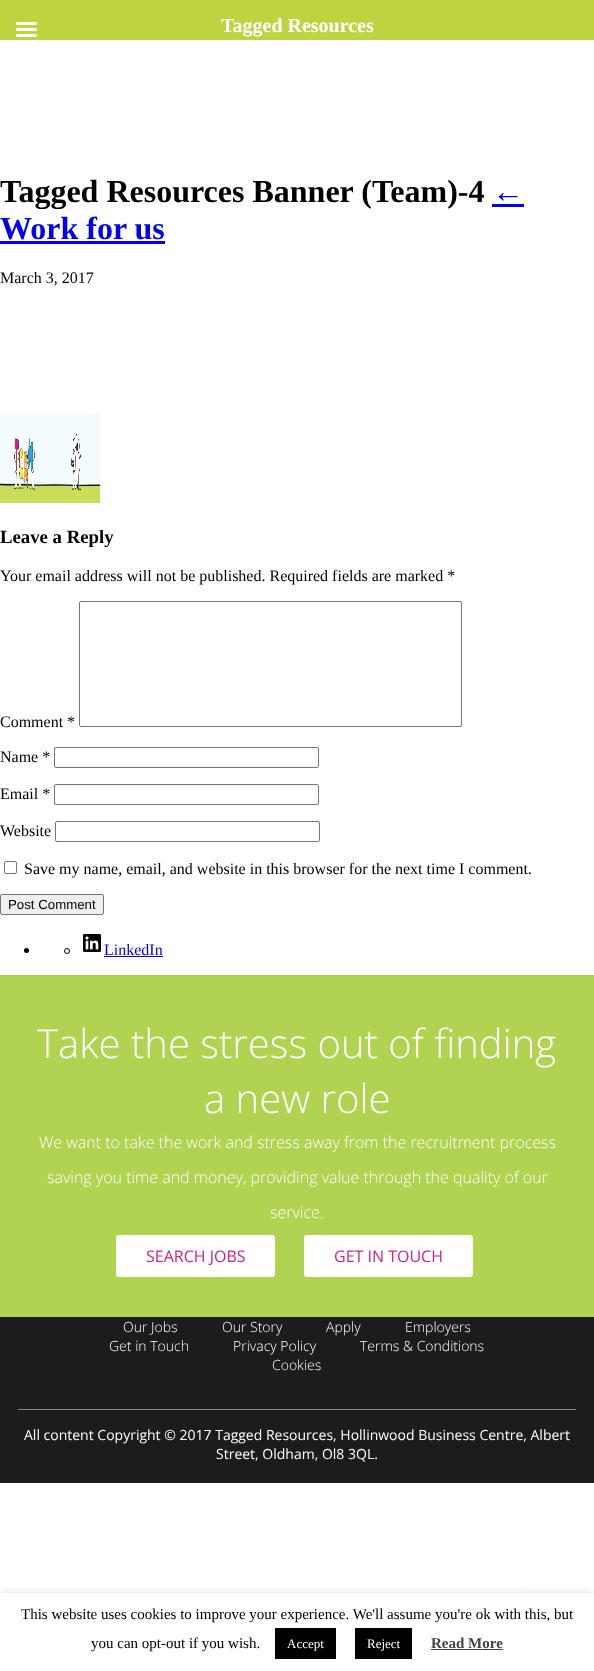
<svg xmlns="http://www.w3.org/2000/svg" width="594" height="1671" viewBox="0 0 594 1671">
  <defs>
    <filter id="blur1" x="-50%" y="-200%" width="200%" height="500%"><feGaussianBlur stdDeviation="2.5"/></filter>
    <filter id="blur2" x="-50%" y="-200%" width="200%" height="500%"><feGaussianBlur stdDeviation="5"/></filter>
  </defs>
  <rect width="100%" height="100%" fill="#ffffff"/>
  <rect x="0" y="0" width="594" height="40" fill="#bfd340"/>
  <image x="16" y="22" width="21" height="15" href="img1.png"/>
  <text x="221" y="32" font-family="Liberation Serif" font-size="20" font-weight="bold" fill="#ffffff">Tagged Resources</text>
  <text x="0" y="202" font-family="Liberation Serif" font-size="32" font-weight="bold" fill="#000000">Tagged Resources Banner (Team)-4</text>
  <text x="492" y="202" font-family="Liberation Serif" font-size="32" font-weight="bold" fill="#0000ee">←</text>
  <rect x="492" y="204" width="32" height="3" fill="#0000ee"/>
  <text x="0" y="239" font-family="Liberation Serif" font-size="32" font-weight="bold" fill="#0000ee">Work for us</text>
  <rect x="0" y="241" width="165" height="3" fill="#0000ee"/>
  <text x="0" y="283" font-family="Liberation Serif" font-size="16" fill="#000000">March 3, 2017</text>
  <image x="0" y="413" width="100" height="90" href="img2.png"/>
  <text x="0" y="543" font-family="Liberation Serif" font-size="18.75" font-weight="bold" fill="#000000">Leave a Reply</text>
  <text x="0" y="581" font-family="Liberation Serif" font-size="16" fill="#000000">Your email address will not be published. Required fields are marked *</text>
  <text x="0" y="727" font-family="Liberation Serif" font-size="16" fill="#000000">Comment *</text>
  <rect x="79.5" y="601.5" width="382" height="125" rx="1.5" fill="none" stroke="#767676"/>
  <text x="0" y="762" font-family="Liberation Serif" font-size="16" fill="#000000">Name *</text>
  <rect x="54.5" y="747.5" width="264" height="20" rx="1.5" fill="none" stroke="#767676"/>
  <text x="0" y="799" font-family="Liberation Serif" font-size="16" fill="#000000">Email *</text>
  <rect x="54.5" y="784.5" width="264" height="20" rx="1.5" fill="none" stroke="#767676"/>
  <text x="0" y="836" font-family="Liberation Serif" font-size="16" fill="#000000">Website</text>
  <rect x="55.5" y="821.5" width="264" height="20" rx="1.5" fill="none" stroke="#767676"/>
  <rect x="4.5" y="861.5" width="12" height="12" rx="1.5" fill="none" stroke="#767676"/>
  <text x="24" y="874" font-family="Liberation Serif" font-size="16" fill="#000000">Save my name, email, and website in this browser for the next time I comment.</text>
  <rect x="0.5" y="894.5" width="103" height="20" rx="1.5" fill="#efefef" stroke="#767676"/>
  <text x="8" y="909" font-family="Liberation Sans" font-size="13.25" fill="#000000">Post Comment</text>
  <circle cx="26.5" cy="950.5" r="2.5" fill="#000000"/>
  <circle cx="67" cy="951" r="2.5" fill="none" stroke="#000000"/>
  <image x="83" y="934" width="18" height="18" href="img3.png"/>
  <text x="104" y="955" font-family="Liberation Serif" font-size="16" fill="#0000ee">LinkedIn</text>
  <rect x="104" y="956" width="59" height="1" fill="#0000ee"/>
  <rect x="0" y="975" width="594" height="342" fill="#b2d251"/>
  <text x="37" y="1058" font-family="Open Sans" font-size="40" font-weight="300" fill="#ffffff">Take the stress out of finding</text>
  <text x="204" y="1113" font-family="Open Sans" font-size="40" font-weight="300" fill="#ffffff">a new role</text>
  <text x="39" y="1148" font-family="Open Sans" font-size="16" font-weight="300" fill="#ffffff">We want to take the work and stress away from the recruitment process</text>
  <text x="47" y="1183" font-family="Open Sans" font-size="16" font-weight="300" fill="#ffffff">saving you time and money, providing value through the quality of our</text>
  <text x="270" y="1218" font-family="Open Sans" font-size="16" font-weight="300" fill="#ffffff">service.</text>
  <rect x="116" y="1235" width="159" height="42" rx="3" fill="#ffffff"/>
  <text x="146" y="1262" font-family="Open Sans" font-size="16" fill="#d02284">SEARCH JOBS</text>
  <rect x="304" y="1235" width="169" height="42" rx="3" fill="#ffffff"/>
  <text x="334" y="1262" font-family="Open Sans" font-size="16" fill="#d02284">GET IN TOUCH</text>
  <rect x="0" y="1317" width="594" height="166" fill="#1c1c1c"/>
  <text x="123" y="1332" font-family="Open Sans" font-size="14" font-weight="300" fill="#ffffff">Our Jobs</text>
  <text x="222" y="1332" font-family="Open Sans" font-size="14" font-weight="300" fill="#ffffff">Our Story</text>
  <text x="326" y="1332" font-family="Open Sans" font-size="14" font-weight="300" fill="#ffffff">Apply</text>
  <text x="405" y="1332" font-family="Open Sans" font-size="14" font-weight="300" fill="#ffffff">Employers</text>
  <text x="109" y="1351" font-family="Open Sans" font-size="14" font-weight="300" fill="#ffffff">Get in Touch</text>
  <text x="233" y="1351" font-family="Open Sans" font-size="14" font-weight="300" fill="#ffffff">Privacy Policy</text>
  <text x="360" y="1351" font-family="Open Sans" font-size="14" font-weight="300" fill="#ffffff">Terms &amp; Conditions</text>
  <text x="272" y="1370" font-family="Open Sans" font-size="14" font-weight="300" fill="#ffffff">Cookies</text>
  <rect x="18" y="1409" width="558" height="1" fill="#878988"/>
  <text x="24" y="1440" font-family="Open Sans" font-size="14" fill="#ffffff">All content Copyright © 2017 Tagged Resources, Hollinwood Business Centre, Albert</text>
  <text x="216" y="1459" font-family="Open Sans" font-size="14" fill="#ffffff">Street, Oldham, Ol8 3QL.</text>
  <rect x="524" y="1597" width="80" height="60" rx="2" fill="#808080" filter="url(#blur1)"/>
  <rect x="0" y="1592" width="594" height="78" fill="#acabab" fill-opacity="0.3" filter="url(#blur2)"/>
  <rect x="0" y="1593" width="594" height="78" fill="#ffffff"/>
  <text x="21" y="1619" font-family="Liberation Serif" font-size="15" fill="#000000">This website uses cookies to improve your experience. We'll assume you're ok with this, but</text>
  <text x="91" y="1648" font-family="Liberation Serif" font-size="15" fill="#000000">you can opt-out if you wish.</text>
  <rect x="275" y="1628" width="61" height="31" fill="#000000"/>
  <text x="287" y="1648" font-family="Liberation Serif" font-size="13" fill="#ffffff">Accept</text>
  <rect x="355" y="1628" width="57" height="31" fill="#000000"/>
  <text x="367" y="1648" font-family="Liberation Serif" font-size="13" fill="#ffffff">Reject</text>
  <text x="431" y="1648" font-family="Liberation Serif" font-size="15" font-weight="bold" fill="#444444">Read More</text>
  <rect x="431" y="1649" width="72" height="1" fill="#444444"/>
</svg>
